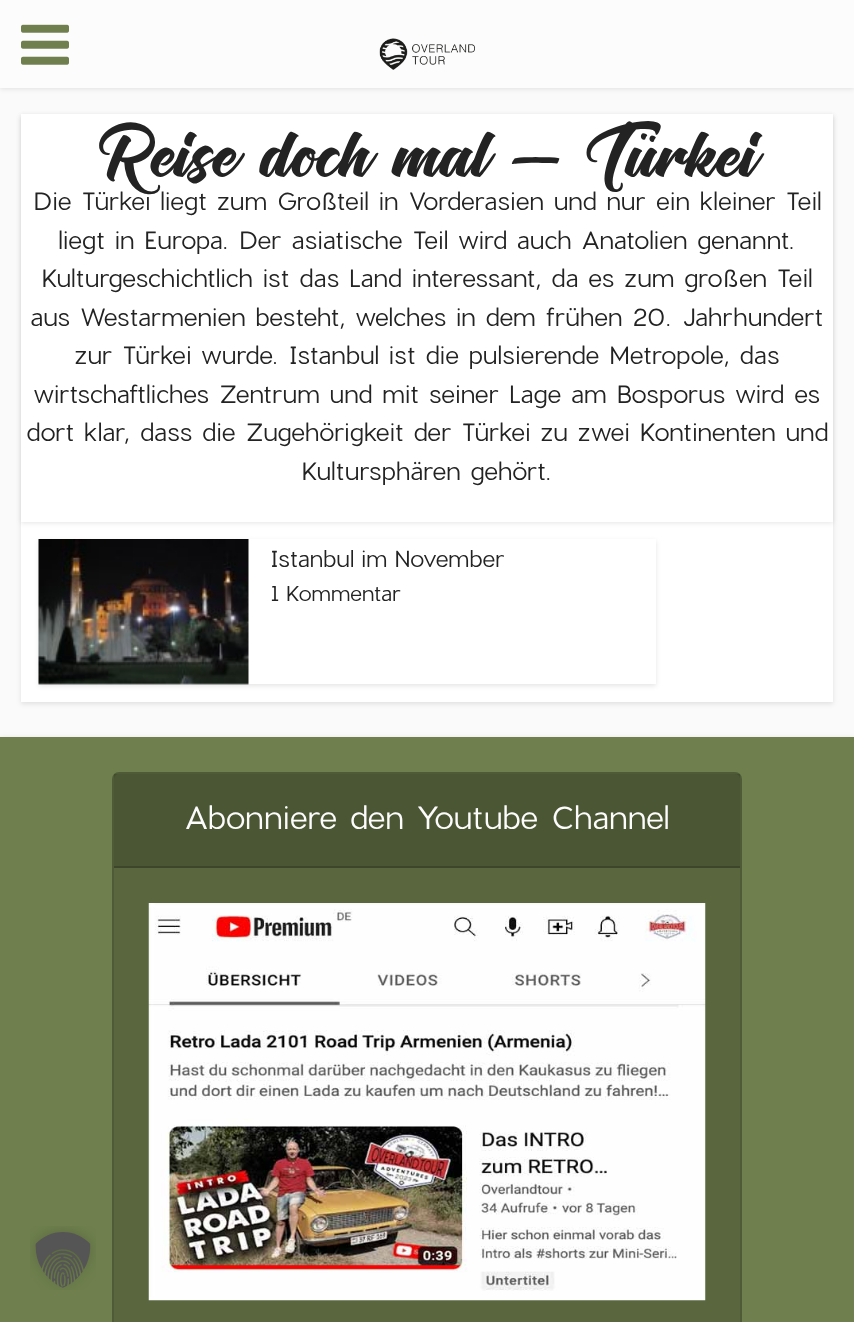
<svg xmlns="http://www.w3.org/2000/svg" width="854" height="1322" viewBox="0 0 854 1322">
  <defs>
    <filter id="blur1" x="-50%" y="-200%" width="200%" height="500%"><feGaussianBlur stdDeviation="2.5"/></filter>
    <clipPath id="clip1"><path d="M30 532H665V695H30ZM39 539H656V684H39Z" clip-rule="evenodd"/></clipPath>
    <filter id="blur2" x="-50%" y="-200%" width="200%" height="500%"><feGaussianBlur stdDeviation="3.5"/></filter>
  </defs>
  <rect width="100%" height="100%" fill="#fafafa"/>
  <rect x="0" y="2" width="854" height="87" fill="#000000" fill-opacity="0.1" filter="url(#blur1)"/>
  <rect x="0" y="0" width="854" height="88" fill="#fcfcfc"/>
  <image x="21" y="24" width="48" height="41" href="img1.png"/>
  <image x="379" y="38" width="96" height="32" href="img2.png"/>
  <rect x="21" y="116" width="812" height="588" fill="#000000" fill-opacity="0.1" filter="url(#blur1)"/>
  <rect x="21" y="522" width="812" height="180" fill="#ffffff"/>
  <rect x="21" y="116" width="812" height="407" fill="#000000" fill-opacity="0.1" filter="url(#blur1)"/>
  <rect x="21" y="114" width="812" height="408" fill="#ffffff"/>
  <text x="97" y="177" font-family="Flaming" font-size="87.5" fill="#232323">Reise doch mal – Türkei</text>
  <text x="33" y="210" font-family="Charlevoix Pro" font-size="24.5" fill="#232323">Die Türkei liegt zum Großteil in Vorderasien und nur ein kleiner Teil</text>
  <text x="58" y="249" font-family="Charlevoix Pro" font-size="24.5" fill="#232323">liegt in Europa. Der asiatische Teil wird auch Anatolien genannt.</text>
  <text x="41" y="287" font-family="Charlevoix Pro" font-size="24.5" fill="#232323">Kulturgeschichtlich ist das Land interessant, da es zum großen Teil</text>
  <text x="30" y="326" font-family="Charlevoix Pro" font-size="24.5" fill="#232323">aus Westarmenien besteht, welches in dem frühen 20. Jahrhundert</text>
  <text x="74" y="364" font-family="Charlevoix Pro" font-size="24.5" fill="#232323">zur Türkei wurde. Istanbul ist die pulsierende Metropole, das</text>
  <text x="33" y="403" font-family="Charlevoix Pro" font-size="24.5" fill="#232323">wirtschaftliches Zentrum und mit seiner Lage am Bosporus wird es</text>
  <text x="26" y="441" font-family="Charlevoix Pro" font-size="24.5" fill="#232323">dort klar, dass die Zugehörigkeit der Türkei zu zwei Kontinenten und</text>
  <text x="301" y="480" font-family="Charlevoix Pro" font-size="24.5" fill="#232323">Kultursphären gehört.</text>
  <g clip-path="url(#clip1)">
    <rect x="39" y="541" width="617" height="145" fill="#000000" fill-opacity="0.1" filter="url(#blur1)"/>
  </g>
  <image x="38" y="539" width="211" height="146" href="img3.png"/>
  <text x="270" y="567" word-spacing="-2" font-family="Charlevoix Pro" font-size="22.75" fill="#232323">Istanbul im November</text>
  <text x="270" y="601" word-spacing="-2" font-family="Charlevoix Pro" font-size="21" fill="#232323">1 Kommentar</text>
  <rect x="0" y="740" width="854" height="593" fill="#000000" fill-opacity="0.2" filter="url(#blur2)"/>
  <rect x="0" y="737" width="854" height="585" fill="#6f804e"/>
  <rect x="112" y="772" width="630" height="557" rx="7" fill="#59663e"/>
  <rect x="113" y="773" width="628" height="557" rx="6" fill="none" stroke="#000000" stroke-opacity="0.1" stroke-width="2"/>
  <rect x="114" y="774" width="626" height="92" fill="#000000" fill-opacity="0.15"/>
  <rect x="114" y="866" width="626" height="2" fill="#3d452a"/>
  <text x="184" y="829" font-family="Charlevoix Pro" font-size="31.5" fill="#fcfcfc">Abonniere den Youtube Channel</text>
  <image x="148" y="903" width="558" height="398" href="img4.png"/>
  <image x="30" y="1226" width="66" height="64" href="img5.png"/>
</svg>
